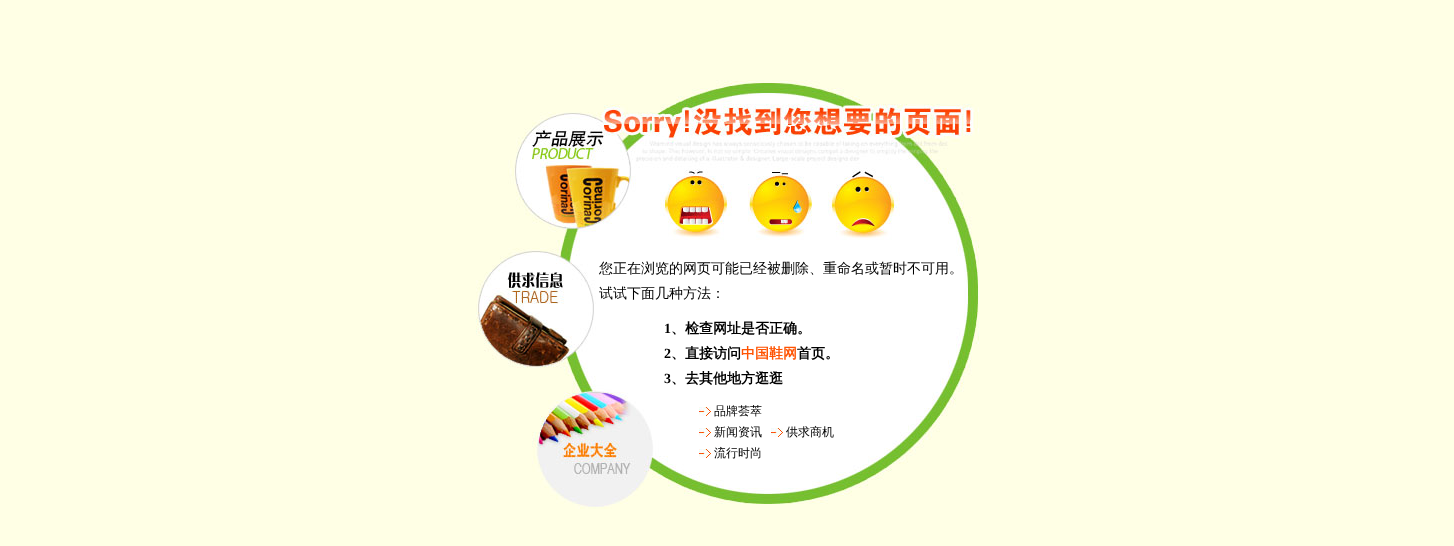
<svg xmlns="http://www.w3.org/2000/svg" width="1454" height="546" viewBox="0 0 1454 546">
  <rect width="100%" height="100%" fill="#ffffe5"/>
  <image x="476" y="80" width="503" height="429" href="img1.png"/>
  <text x="599" y="273" font-family="WenQuanYi Zen Hei" font-size="14" font-weight="500" fill="#000000">您正在浏览的网页可能已经被删除、重命名或暂时不可用。</text>
  <text x="599" y="298" font-family="WenQuanYi Zen Hei" font-size="14" font-weight="500" fill="#000000">试试下面几种方法：</text>
  <text x="664" y="333" font-family="Liberation Serif" font-size="14" font-weight="bold" fill="#000000">1</text>
  <text x="671" y="333" font-family="WenQuanYi Zen Hei" font-size="14" font-weight="bold" fill="#000000">、检查网址是否正确。</text>
  <text x="664" y="358" font-family="Liberation Serif" font-size="14" font-weight="bold" fill="#000000">2</text>
  <text x="671" y="358" font-family="WenQuanYi Zen Hei" font-size="14" font-weight="bold" fill="#000000">、直接访问</text>
  <text x="741" y="358" font-family="WenQuanYi Zen Hei" font-size="14" font-weight="bold" fill="#ff5302">中国鞋网</text>
  <text x="797" y="358" font-family="WenQuanYi Zen Hei" font-size="14" font-weight="bold" fill="#000000">首页。</text>
  <text x="664" y="383" font-family="Liberation Serif" font-size="14" font-weight="bold" fill="#000000">3</text>
  <text x="671" y="383" font-family="WenQuanYi Zen Hei" font-size="14" font-weight="bold" fill="#000000">、去其他地方逛逛</text>
  <image x="699" y="407" width="12" height="9" href="img2.png"/>
  <text x="714" y="415" font-family="WenQuanYi Zen Hei" font-size="12" font-weight="500" fill="#000000">品牌荟萃</text>
  <image x="699" y="428" width="12" height="9" href="img2.png"/>
  <text x="714" y="436" font-family="WenQuanYi Zen Hei" font-size="12" font-weight="500" fill="#000000">新闻资讯</text>
  <image x="771" y="428" width="12" height="9" href="img2.png"/>
  <text x="786" y="436" font-family="WenQuanYi Zen Hei" font-size="12" font-weight="500" fill="#000000">供求商机</text>
  <image x="699" y="449" width="12" height="9" href="img2.png"/>
  <text x="714" y="457" font-family="WenQuanYi Zen Hei" font-size="12" font-weight="500" fill="#000000">流行时尚</text>
</svg>
